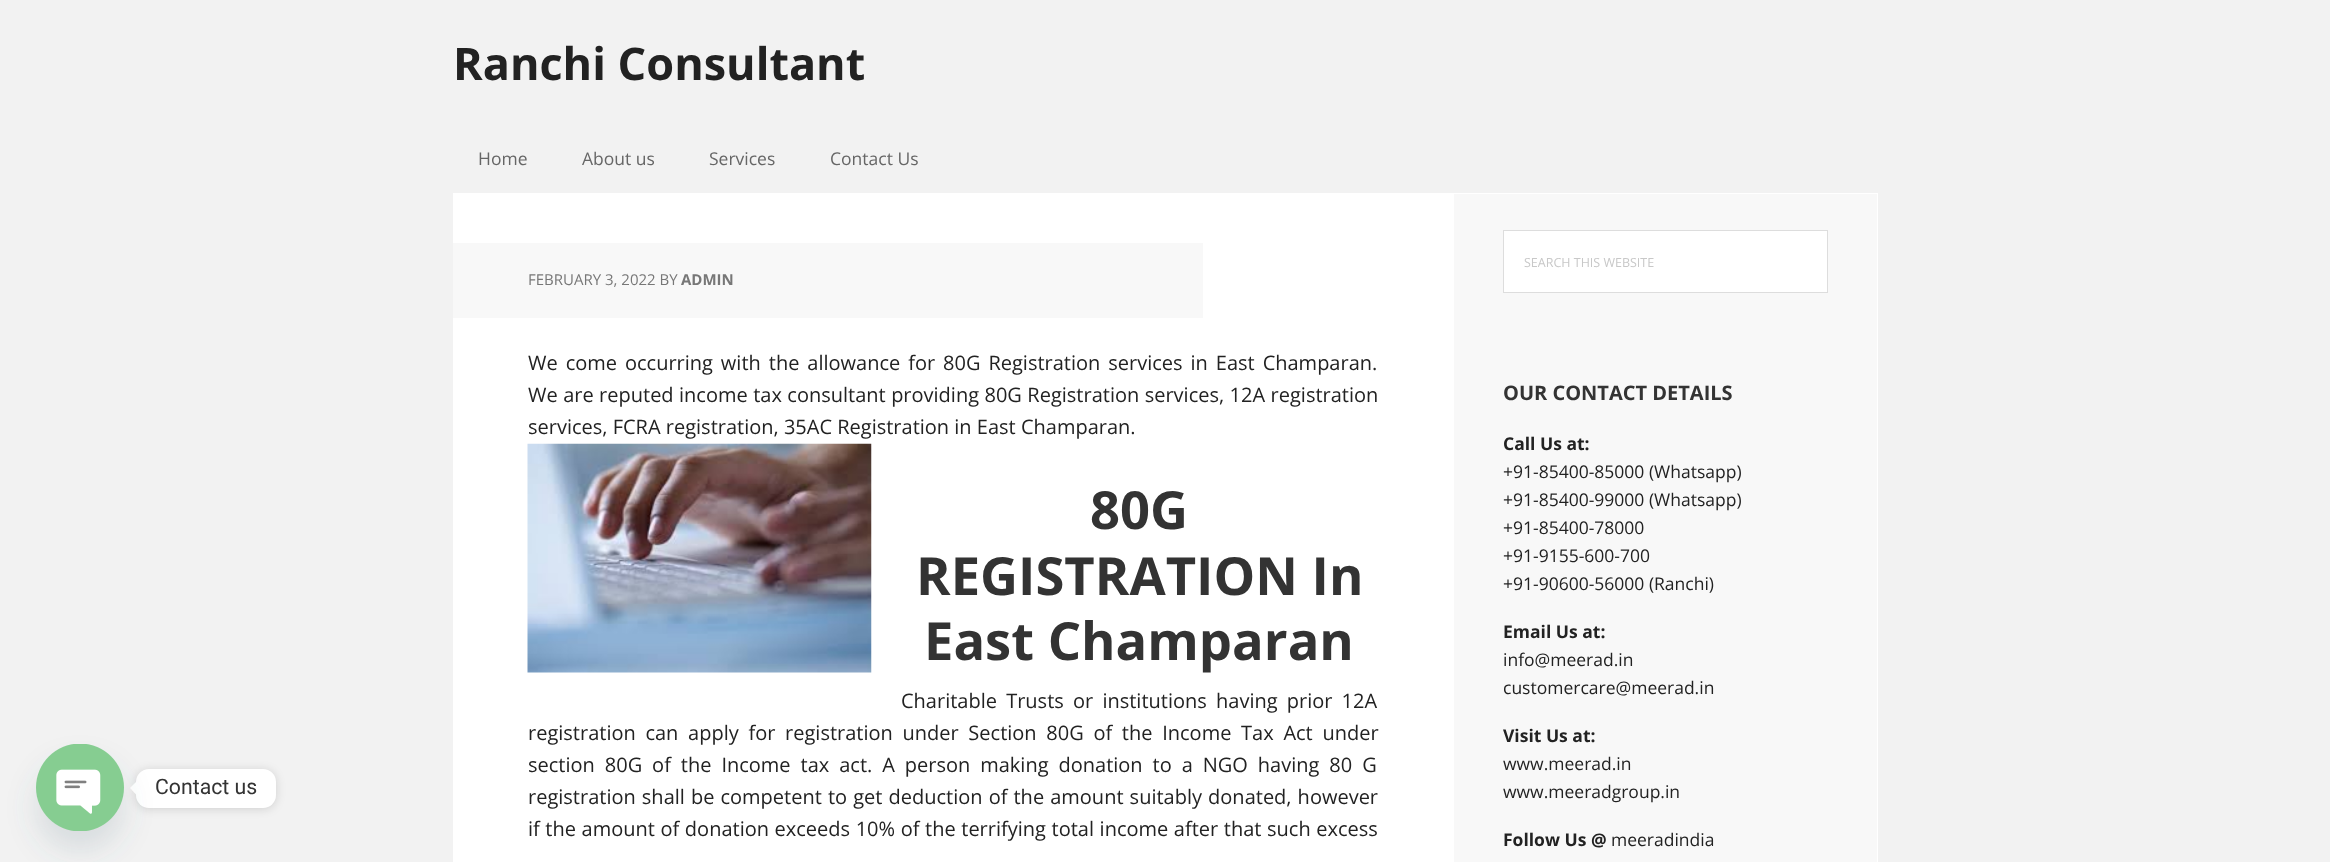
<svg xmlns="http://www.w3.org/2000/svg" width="2330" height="862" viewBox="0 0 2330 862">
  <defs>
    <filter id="blur1" x="-50%" y="-200%" width="200%" height="500%"><feGaussianBlur stdDeviation="5"/></filter>
    <filter id="blur2" x="-50%" y="-200%" width="200%" height="500%"><feGaussianBlur stdDeviation="15"/></filter>
  </defs>
  <rect width="100%" height="100%" fill="#f2f2f2"/>
  <rect x="136" y="770" width="140" height="39" rx="13" fill="#000000" fill-opacity="0.15" filter="url(#blur1)"/>
  <rect x="136" y="769" width="140" height="39" rx="13" fill="#ffffff"/>
  <path d="M136 782V794.5L130 788Z" fill="#ffffff"/>
  <rect x="36" y="764" width="88" height="87" rx="43.5" fill="#49687e" fill-opacity="0.16" filter="url(#blur2)"/>
  <image x="36" y="744" width="88" height="87" href="img1.png"/>
  <text x="155" y="794" font-family="Roboto" font-size="21.25" fill="#333333">Contact us</text>
  <text x="453" y="80" font-family="Open Sans" font-size="45" font-weight="bold" fill="#222222">Ranchi Consultant</text>
  <text x="478" y="165" font-family="Open Sans" font-size="17.5" fill="#666666">Home</text>
  <text x="582" y="165" font-family="Open Sans" font-size="17.5" fill="#666666">About us</text>
  <text x="709" y="165" font-family="Open Sans" font-size="17.5" fill="#666666">Services</text>
  <text x="830" y="165" font-family="Open Sans" font-size="17.5" fill="#666666">Contact Us</text>
  <rect x="453" y="193" width="1000" height="669" fill="#ffffff"/>
  <rect x="453" y="243" width="750" height="75" fill="#f8f8f8"/>
  <text x="528" y="285" font-family="Open Sans" font-size="15" fill="#777777">FEBRUARY 3, 2022 BY</text>
  <text x="681" y="285" font-family="Open Sans" font-size="15" font-weight="bold" fill="#777777">ADMIN</text>
  <text x="528" y="370" word-spacing="2.75" font-family="Open Sans" font-size="20" fill="#222222">We come occurring with the allowance for 80G Registration services in East Champaran.</text>
  <text x="528" y="402" word-spacing="0.25" font-family="Open Sans" font-size="20" fill="#222222">We are reputed income tax consultant providing 80G Registration services, 12A registration</text>
  <text x="528" y="434" font-family="Open Sans" font-size="20" fill="#222222">services, FCRA registration, 35AC Registration in East Champaran.</text>
  <image x="527" y="443" width="345" height="230" href="img2.png"/>
  <text x="1090" y="529" font-family="Open Sans" font-size="52.5" font-weight="bold" fill="#333333">80G</text>
  <text x="916" y="595" font-family="Open Sans" font-size="52.5" font-weight="bold" fill="#333333">REGISTRATION In</text>
  <text x="924" y="660" font-family="Open Sans" font-size="52.5" font-weight="bold" fill="#333333">East Champaran</text>
  <text x="901" y="708" word-spacing="4" font-family="Open Sans" font-size="20" fill="#222222">Charitable Trusts or institutions having prior 12A</text>
  <text x="528" y="740" word-spacing="4.5" font-family="Open Sans" font-size="20" fill="#222222">registration can apply for registration under Section 80G of the Income Tax Act under</text>
  <text x="528" y="772" word-spacing="4.75" font-family="Open Sans" font-size="20" fill="#222222">section 80G of the Income tax act. A person making donation to a NGO having 80 G</text>
  <text x="528" y="804" word-spacing="0.9" font-family="Open Sans" font-size="20" fill="#222222">registration shall be competent to get deduction of the amount suitably donated, however</text>
  <text x="528" y="836" word-spacing="0.4" font-family="Open Sans" font-size="20" fill="#222222">if the amount of donation exceeds 10% of the terrifying total income after that such excess</text>
  <rect x="1453.5" y="193.5" width="424" height="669" fill="#f8f8f8" stroke="#ffffff"/>
  <rect x="1503.5" y="230.5" width="324" height="62" fill="#ffffff" stroke="#dddddd"/>
  <text x="1524" y="267" font-family="Open Sans" font-size="12.5" fill="#c8c8c8">SEARCH THIS WEBSITE</text>
  <text x="1503" y="400" font-family="Open Sans" font-size="20" font-weight="bold" fill="#333333">OUR CONTACT DETAILS</text>
  <text x="1503" y="450" font-family="Open Sans" font-size="17.5" font-weight="bold" fill="#222222">Call Us at:</text>
  <text x="1503" y="478" font-family="Open Sans" font-size="17.5" fill="#222222">+91-85400-85000 (Whatsapp)</text>
  <text x="1503" y="506" font-family="Open Sans" font-size="17.5" fill="#222222">+91-85400-99000 (Whatsapp)</text>
  <text x="1503" y="534" font-family="Open Sans" font-size="17.5" fill="#222222">+91-85400-78000</text>
  <text x="1503" y="562" font-family="Open Sans" font-size="17.5" fill="#222222">+91-9155-600-700</text>
  <text x="1503" y="590" font-family="Open Sans" font-size="17.5" fill="#222222">+91-90600-56000 (Ranchi)</text>
  <text x="1503" y="638" font-family="Open Sans" font-size="17.5" font-weight="bold" fill="#222222">Email Us at:</text>
  <text x="1503" y="666" font-family="Open Sans" font-size="17.5" fill="#222222">info@meerad.in</text>
  <text x="1503" y="694" font-family="Open Sans" font-size="17.5" fill="#222222">customercare@meerad.in</text>
  <text x="1503" y="742" font-family="Open Sans" font-size="17.5" font-weight="bold" fill="#222222">Visit Us at:</text>
  <text x="1503" y="770" font-family="Open Sans" font-size="17.5" fill="#222222">www.meerad.in</text>
  <text x="1503" y="798" font-family="Open Sans" font-size="17.5" fill="#222222">www.meeradgroup.in</text>
  <text x="1503" y="846" font-family="Open Sans" font-size="17.5" font-weight="bold" fill="#222222">Follow Us @</text>
  <text x="1611" y="846" font-family="Open Sans" font-size="17.5" fill="#222222">meeradindia</text>
</svg>
